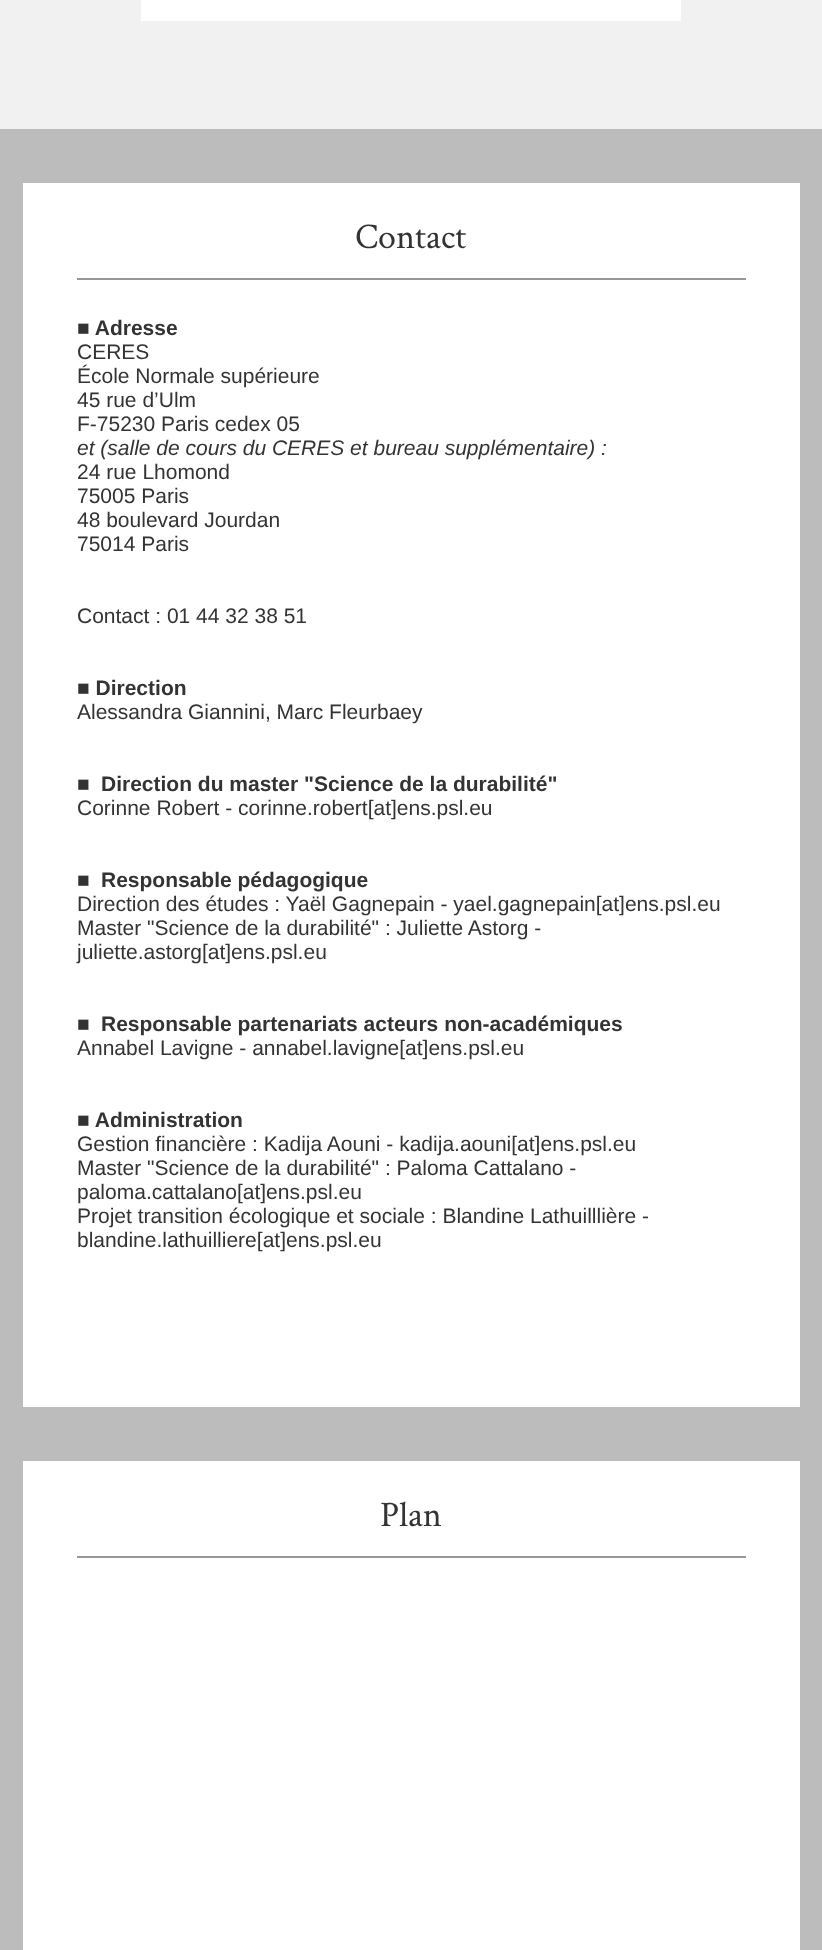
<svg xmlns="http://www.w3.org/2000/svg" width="822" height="1950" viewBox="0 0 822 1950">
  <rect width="100%" height="100%" fill="#f1f1f1"/>
  <rect x="141" y="0" width="540" height="21" fill="#ffffff"/>
  <rect x="0" y="129" width="822" height="1821" fill="#bcbcbc"/>
  <rect x="23" y="183" width="777" height="1224" fill="#ffffff"/>
  <rect x="77" y="278" width="669" height="2" fill="#979797"/>
  <text x="355" y="248" font-family="Crimson Text" font-size="36" fill="#333333">Contact</text>
  <text x="77" y="335" font-family="Liberation Sans" font-size="21" font-weight="bold" fill="#333333">■ Adresse</text>
  <text x="77" y="359" font-family="Liberation Sans" font-size="21" fill="#333333">CERES</text>
  <text x="77" y="383" font-family="Liberation Sans" font-size="21" fill="#333333">École Normale supérieure</text>
  <text x="77" y="407" font-family="Liberation Sans" font-size="21" fill="#333333">45 rue d’Ulm</text>
  <text x="77" y="431" font-family="Liberation Sans" font-size="21" fill="#333333">F-75230 Paris cedex 05</text>
  <text x="77" y="455" font-family="Liberation Sans" font-size="21" font-style="italic" fill="#333333">et (salle de cours du CERES et bureau supplémentaire) :</text>
  <text x="77" y="479" font-family="Liberation Sans" font-size="21" fill="#333333">24 rue Lhomond</text>
  <text x="77" y="503" font-family="Liberation Sans" font-size="21" fill="#333333">75005 Paris</text>
  <text x="77" y="527" font-family="Liberation Sans" font-size="21" fill="#333333">48 boulevard Jourdan</text>
  <text x="77" y="551" font-family="Liberation Sans" font-size="21" fill="#333333">75014 Paris</text>
  <text x="77" y="623" font-family="Liberation Sans" font-size="21" fill="#333333">Contact : 01 44 32 38 51</text>
  <text x="77" y="695" font-family="Liberation Sans" font-size="21" font-weight="bold" fill="#333333">■ Direction</text>
  <text x="77" y="719" font-family="Liberation Sans" font-size="21" fill="#333333">Alessandra Giannini, Marc Fleurbaey</text>
  <text x="77" y="791" font-family="Liberation Sans" font-size="21" font-weight="bold" fill="#333333">■</text>
  <text x="101" y="791" font-family="Liberation Sans" font-size="21" font-weight="bold" fill="#333333">Direction du master "Science de la durabilité"</text>
  <text x="77" y="815" font-family="Liberation Sans" font-size="21" fill="#333333">Corinne Robert - corinne.robert[at]ens.psl.eu</text>
  <text x="77" y="887" font-family="Liberation Sans" font-size="21" font-weight="bold" fill="#333333">■</text>
  <text x="101" y="887" font-family="Liberation Sans" font-size="21" font-weight="bold" fill="#333333">Responsable pédagogique</text>
  <text x="77" y="911" font-family="Liberation Sans" font-size="21" fill="#333333">Direction des études : Yaël Gagnepain - yael.gagnepain[at]ens.psl.eu</text>
  <text x="77" y="935" font-family="Liberation Sans" font-size="21" fill="#333333">Master "Science de la durabilité" : Juliette Astorg -</text>
  <text x="77" y="959" font-family="Liberation Sans" font-size="21" fill="#333333">juliette.astorg[at]ens.psl.eu</text>
  <text x="77" y="1031" font-family="Liberation Sans" font-size="21" font-weight="bold" fill="#333333">■</text>
  <text x="101" y="1031" font-family="Liberation Sans" font-size="21" font-weight="bold" fill="#333333">Responsable partenariats acteurs non-académiques</text>
  <text x="77" y="1055" font-family="Liberation Sans" font-size="21" fill="#333333">Annabel Lavigne - annabel.lavigne[at]ens.psl.eu</text>
  <text x="77" y="1127" font-family="Liberation Sans" font-size="21" font-weight="bold" fill="#333333">■ Administration</text>
  <text x="77" y="1151" font-family="Liberation Sans" font-size="21" fill="#333333">Gestion financière : Kadija Aouni - kadija.aouni[at]ens.psl.eu</text>
  <text x="77" y="1175" font-family="Liberation Sans" font-size="21" fill="#333333">Master "Science de la durabilité" : Paloma Cattalano -</text>
  <text x="77" y="1199" font-family="Liberation Sans" font-size="21" fill="#333333">paloma.cattalano[at]ens.psl.eu</text>
  <text x="77" y="1223" font-family="Liberation Sans" font-size="21" fill="#333333">Projet transition écologique et sociale : Blandine Lathuilllière -</text>
  <text x="77" y="1247" font-family="Liberation Sans" font-size="21" fill="#333333">blandine.lathuilliere[at]ens.psl.eu</text>
  <rect x="23" y="1461" width="777" height="489" fill="#ffffff"/>
  <rect x="77" y="1556" width="669" height="2" fill="#979797"/>
  <text x="380" y="1526" font-family="Crimson Text" font-size="36" fill="#333333">Plan</text>
</svg>
